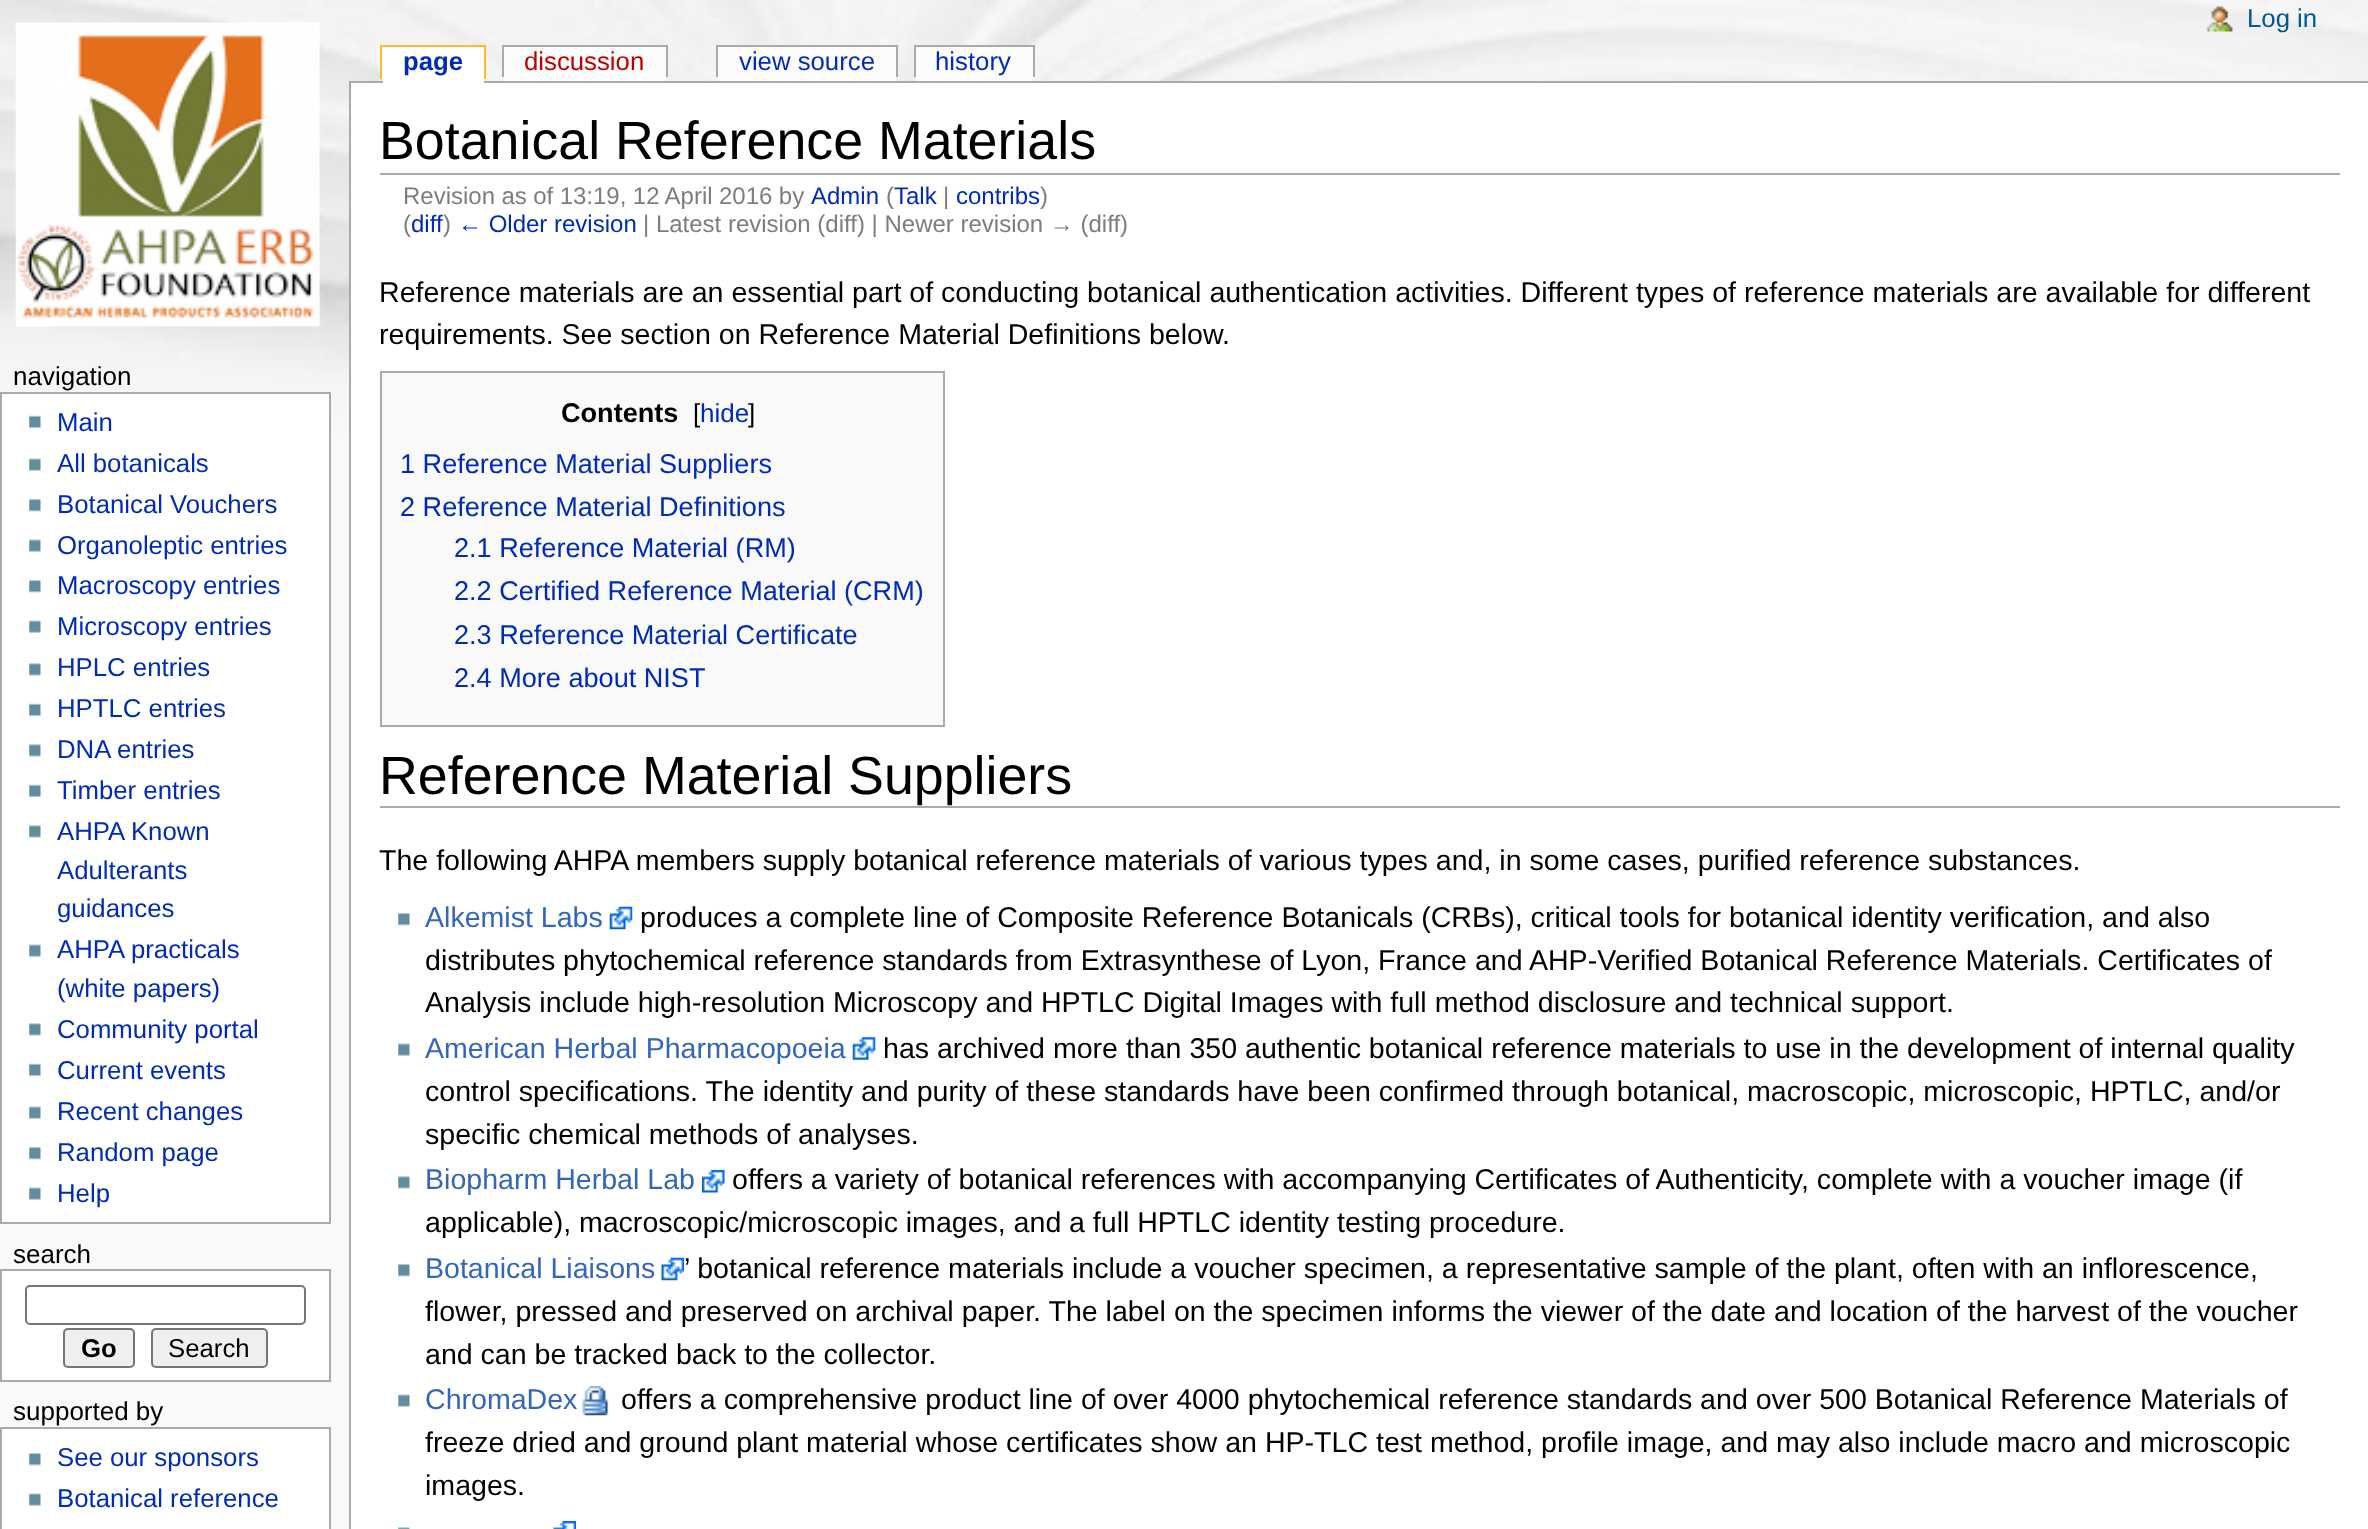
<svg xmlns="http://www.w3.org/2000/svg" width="2368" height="1529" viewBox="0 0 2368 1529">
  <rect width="100%" height="100%" fill="#f9f9f9"/>
  <image x="0" y="0" width="2368" height="438" href="img1.png"/>
  <image x="15" y="22" width="305" height="305" href="img2.png"/>
  <rect x="349" y="81" width="2019" height="2" fill="#aaaaaa"/>
  <rect x="383" y="47" width="101" height="36" fill="#ffffff"/>
  <text x="403" y="70" font-family="Liberation Sans" font-size="25.75" font-weight="bold" fill="#002bb8">page</text>
  <rect x="382" y="47" width="1" height="32" fill="#ffffff"/>
  <rect x="380" y="45" width="106" height="2" fill="#fabd23"/>
  <rect x="484" y="45" width="2" height="34" fill="#fabd23"/>
  <rect x="380" y="45" width="2" height="34" fill="#fabd23"/>
  <rect x="504" y="47" width="162" height="34" fill="#fbfbfb"/>
  <text x="524" y="70" font-family="Liberation Sans" font-size="25.75" fill="#ba0000">discussion</text>
  <rect x="502" y="45" width="166" height="2" fill="#aaaaaa"/>
  <rect x="666" y="45" width="2" height="32" fill="#aaaaaa"/>
  <rect x="502" y="45" width="2" height="32" fill="#aaaaaa"/>
  <rect x="718" y="47" width="178" height="34" fill="#fbfbfb"/>
  <text x="739" y="70" font-family="Liberation Sans" font-size="25.75" fill="#002bb8">view source</text>
  <rect x="716" y="45" width="182" height="2" fill="#aaaaaa"/>
  <rect x="896" y="45" width="2" height="32" fill="#aaaaaa"/>
  <rect x="716" y="45" width="2" height="32" fill="#aaaaaa"/>
  <rect x="916" y="47" width="117" height="34" fill="#fbfbfb"/>
  <text x="935" y="70" font-family="Liberation Sans" font-size="25.75" fill="#002bb8">history</text>
  <rect x="914" y="45" width="121" height="2" fill="#aaaaaa"/>
  <rect x="1033" y="45" width="2" height="32" fill="#aaaaaa"/>
  <rect x="914" y="45" width="2" height="32" fill="#aaaaaa"/>
  <image x="2206" y="6" width="27" height="26" href="img3.png"/>
  <text x="2247" y="27" font-family="Liberation Sans" font-size="25.75" fill="#005896">Log in</text>
  <text x="13" y="385" font-family="Liberation Sans" font-size="26" fill="#000000">navigation</text>
  <rect x="1" y="393" width="329" height="830" fill="#ffffff" stroke="#aaaaaa" stroke-width="2"/>
  <image x="29" y="415" width="12" height="14" href="img4.png"/>
  <text x="57" y="431" font-family="Liberation Sans" font-size="25.75" fill="#002bb8">Main</text>
  <image x="29" y="458" width="12" height="13" href="img5.png"/>
  <text x="57" y="472" font-family="Liberation Sans" font-size="25.75" fill="#002bb8">All botanicals</text>
  <image x="29" y="499" width="12" height="13" href="img6.png"/>
  <text x="57" y="513" font-family="Liberation Sans" font-size="25.75" fill="#002bb8">Botanical Vouchers</text>
  <image x="29" y="539" width="12" height="13" href="img5.png"/>
  <text x="57" y="554" font-family="Liberation Sans" font-size="25.75" fill="#002bb8">Organoleptic entries</text>
  <image x="29" y="580" width="12" height="13" href="img7.png"/>
  <text x="57" y="594" font-family="Liberation Sans" font-size="25.75" fill="#002bb8">Macroscopy entries</text>
  <image x="29" y="620" width="12" height="13" href="img5.png"/>
  <text x="57" y="635" font-family="Liberation Sans" font-size="25.75" fill="#002bb8">Microscopy entries</text>
  <image x="29" y="663" width="12" height="13" href="img8.png"/>
  <text x="57" y="676" font-family="Liberation Sans" font-size="25.75" fill="#002bb8">HPLC entries</text>
  <image x="29" y="703" width="12" height="14" href="img4.png"/>
  <text x="57" y="717" font-family="Liberation Sans" font-size="25.75" fill="#002bb8">HPTLC entries</text>
  <image x="29" y="744" width="12" height="13" href="img8.png"/>
  <text x="57" y="758" font-family="Liberation Sans" font-size="25.75" fill="#002bb8">DNA entries</text>
  <image x="29" y="784" width="12" height="14" href="img4.png"/>
  <text x="57" y="799" font-family="Liberation Sans" font-size="25.75" fill="#002bb8">Timber entries</text>
  <image x="29" y="825" width="12" height="13" href="img8.png"/>
  <text x="57" y="840" font-family="Liberation Sans" font-size="25.75" fill="#002bb8">AHPA Known</text>
  <text x="57" y="879" font-family="Liberation Sans" font-size="25.75" fill="#002bb8">Adulterants</text>
  <text x="57" y="917" font-family="Liberation Sans" font-size="25.75" fill="#002bb8">guidances</text>
  <image x="29" y="944" width="12" height="13" href="img5.png"/>
  <text x="57" y="958" font-family="Liberation Sans" font-size="25.75" fill="#002bb8">AHPA practicals</text>
  <text x="57" y="997" font-family="Liberation Sans" font-size="25.75" fill="#002bb8">(white papers)</text>
  <image x="29" y="1023" width="12" height="13" href="img8.png"/>
  <text x="57" y="1038" font-family="Liberation Sans" font-size="25.75" fill="#002bb8">Community portal</text>
  <image x="29" y="1063" width="12" height="14" href="img4.png"/>
  <text x="57" y="1079" font-family="Liberation Sans" font-size="25.75" fill="#002bb8">Current events</text>
  <image x="29" y="1106" width="12" height="13" href="img5.png"/>
  <text x="57" y="1120" font-family="Liberation Sans" font-size="25.75" fill="#002bb8">Recent changes</text>
  <image x="29" y="1147" width="12" height="13" href="img6.png"/>
  <text x="57" y="1161" font-family="Liberation Sans" font-size="25.75" fill="#002bb8">Random page</text>
  <image x="29" y="1187" width="12" height="13" href="img5.png"/>
  <text x="57" y="1202" font-family="Liberation Sans" font-size="25.75" fill="#002bb8">Help</text>
  <text x="13" y="1263" font-family="Liberation Sans" font-size="26" fill="#000000">search</text>
  <rect x="1" y="1270" width="329" height="111" fill="#ffffff" stroke="#aaaaaa" stroke-width="2"/>
  <rect x="26" y="1286" width="279" height="38" rx="4" fill="none" stroke="#767676" stroke-width="2"/>
  <rect x="64" y="1329" width="70" height="38" rx="4" fill="#efefef" stroke="#767676" stroke-width="2"/>
  <text x="81" y="1357" font-family="Liberation Sans" font-size="25.75" font-weight="bold" fill="#000000">Go</text>
  <rect x="152" y="1329" width="115" height="38" rx="4" fill="#efefef" stroke="#767676" stroke-width="2"/>
  <text x="168" y="1357" font-family="Liberation Sans" font-size="25.75" fill="#000000">Search</text>
  <text x="13" y="1420" font-family="Liberation Sans" font-size="26" fill="#000000">supported by</text>
  <rect x="1" y="1428" width="329" height="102" fill="#ffffff" stroke="#aaaaaa" stroke-width="2"/>
  <image x="29" y="1453" width="12" height="13" href="img6.png"/>
  <text x="57" y="1466" font-family="Liberation Sans" font-size="25.75" fill="#002bb8">See our sponsors</text>
  <image x="29" y="1493" width="12" height="13" href="img5.png"/>
  <text x="57" y="1507" font-family="Liberation Sans" font-size="25.75" fill="#002bb8">Botanical reference</text>
  <rect x="351" y="83" width="2017" height="1446" fill="#ffffff"/>
  <rect x="349" y="81" width="2" height="1448" fill="#aaaaaa"/>
  <rect x="380" y="173" width="1960" height="2" fill="#aaaaaa"/>
  <text x="379" y="159" font-family="Liberation Sans" font-size="53.75" fill="#000000">Botanical Reference Materials</text>
  <text x="403" y="204" word-spacing="-0.25" font-family="Liberation Sans" font-size="24" fill="#7d7d7d">Revision as of 13:19, 12 April 2016 by</text>
  <text x="811" y="204" font-family="Liberation Sans" font-size="24" fill="#002bb8">Admin</text>
  <text x="886" y="204" font-family="Liberation Sans" font-size="24" fill="#7d7d7d">(</text>
  <text x="894" y="204" font-family="Liberation Sans" font-size="24" fill="#002bb8">Talk</text>
  <text x="943" y="204" font-family="Liberation Sans" font-size="24" fill="#7d7d7d">|</text>
  <text x="956" y="204" font-family="Liberation Sans" font-size="24" fill="#002bb8">contribs</text>
  <text x="1040" y="204" font-family="Liberation Sans" font-size="24" fill="#7d7d7d">)</text>
  <text x="403" y="232" font-family="Liberation Sans" font-size="24" fill="#7d7d7d">(</text>
  <text x="411" y="232" font-family="Liberation Sans" font-size="24" fill="#002bb8">diff</text>
  <text x="443" y="232" font-family="Liberation Sans" font-size="24" fill="#7d7d7d">)</text>
  <text x="458" y="232" font-family="Liberation Sans" font-size="24" fill="#002bb8">← Older revision</text>
  <text x="643" y="232" font-family="Liberation Sans" font-size="24" fill="#7d7d7d">| Latest revision (diff) | Newer revision → (diff)</text>
  <text x="379" y="302" font-family="Liberation Sans" font-size="28.57" fill="#000000">Reference materials are an essential part of conducting botanical authentication activities. Different types of reference materials are available for different</text>
  <text x="379" y="344" font-family="Liberation Sans" font-size="28.57" fill="#000000">requirements. See section on Reference Material Definitions below.</text>
  <rect x="381" y="372" width="563" height="354" fill="#f9f9f9" stroke="#aaaaaa" stroke-width="2"/>
  <text x="561" y="422" font-family="Liberation Sans" font-size="27.1" font-weight="bold" fill="#000000">Contents</text>
  <text x="693" y="422" font-family="Liberation Sans" font-size="26" fill="#000000">[</text>
  <text x="700" y="422" font-family="Liberation Sans" font-size="26" fill="#002bb8">hide</text>
  <text x="748" y="422" font-family="Liberation Sans" font-size="26" fill="#000000">]</text>
  <text x="400" y="473" font-family="Liberation Sans" font-size="27.1" fill="#002bb8">1 Reference Material Suppliers</text>
  <text x="400" y="516" font-family="Liberation Sans" font-size="27.1" fill="#002bb8">2 Reference Material Definitions</text>
  <text x="454" y="557" font-family="Liberation Sans" font-size="27.1" fill="#002bb8">2.1 Reference Material (RM)</text>
  <text x="454" y="600" font-family="Liberation Sans" font-size="27.1" fill="#002bb8">2.2 Certified Reference Material (CRM)</text>
  <text x="454" y="644" font-family="Liberation Sans" font-size="27.1" fill="#002bb8">2.3 Reference Material Certificate</text>
  <text x="454" y="687" font-family="Liberation Sans" font-size="27.1" fill="#002bb8">2.4 More about NIST</text>
  <rect x="380" y="806" width="1960" height="2" fill="#aaaaaa"/>
  <text x="379" y="794" font-family="Liberation Sans" font-size="53.75" fill="#000000">Reference Material Suppliers</text>
  <text x="379" y="870" font-family="Liberation Sans" font-size="28.57" fill="#000000">The following AHPA members supply botanical reference materials of various types and, in some cases, purified reference substances.</text>
  <image x="398" y="913" width="12" height="13" href="img6.png"/>
  <text x="425" y="927" font-family="Liberation Sans" font-size="28.57" fill="#3366bb">Alkemist Labs</text>
  <image x="609" y="906" width="24" height="24" href="img9.png"/>
  <text x="640" y="927" font-family="Liberation Sans" font-size="28.57" fill="#000000">produces a complete line of Composite Reference Botanicals (CRBs), critical tools for botanical identity verification, and also</text>
  <text x="425" y="970" font-family="Liberation Sans" font-size="28.57" fill="#000000">distributes phytochemical reference standards from Extrasynthese of Lyon, France and AHP-Verified Botanical Reference Materials. Certificates of</text>
  <text x="425" y="1012" font-family="Liberation Sans" font-size="28.57" fill="#000000">Analysis include high-resolution Microscopy and HPTLC Digital Images with full method disclosure and technical support.</text>
  <image x="398" y="1043" width="12" height="13" href="img5.png"/>
  <text x="425" y="1058" font-family="Liberation Sans" font-size="28.57" fill="#3366bb">American Herbal Pharmacopoeia</text>
  <image x="852" y="1037" width="24" height="23" href="img10.png"/>
  <text x="883" y="1058" font-family="Liberation Sans" font-size="28.57" fill="#000000">has archived more than 350 authentic botanical reference materials to use in the development of internal quality</text>
  <text x="425" y="1101" font-family="Liberation Sans" font-size="28.57" fill="#000000">control specifications. The identity and purity of these standards have been confirmed through botanical, macroscopic, microscopic, HPTLC, and/or</text>
  <text x="425" y="1144" font-family="Liberation Sans" font-size="28.57" fill="#000000">specific chemical methods of analyses.</text>
  <image x="398" y="1176" width="12" height="13" href="img8.png"/>
  <text x="425" y="1189" font-family="Liberation Sans" font-size="28.57" fill="#3366bb">Biopharm Herbal Lab</text>
  <image x="702" y="1170" width="23" height="23" href="img11.png"/>
  <text x="732" y="1189" font-family="Liberation Sans" font-size="28.57" fill="#000000">offers a variety of botanical references with accompanying Certificates of Authenticity, complete with a voucher image (if</text>
  <text x="425" y="1232" word-spacing="-0.1" font-family="Liberation Sans" font-size="28.57" fill="#000000">applicable), macroscopic/microscopic images, and a full HPTLC identity testing procedure.</text>
  <image x="398" y="1264" width="12" height="13" href="img6.png"/>
  <text x="425" y="1278" font-family="Liberation Sans" font-size="28.57" fill="#3366bb">Botanical Liaisons</text>
  <image x="661" y="1257" width="23" height="24" href="img12.png"/>
  <text x="684" y="1278" font-family="Liberation Sans" font-size="28.57" fill="#000000">’ botanical reference materials include a voucher specimen, a representative sample of the plant, often with an inflorescence,</text>
  <text x="425" y="1321" font-family="Liberation Sans" font-size="28.57" fill="#000000">flower, pressed and preserved on archival paper. The label on the specimen informs the viewer of the date and location of the harvest of the voucher</text>
  <text x="425" y="1364" font-family="Liberation Sans" font-size="28.57" fill="#000000">and can be tracked back to the collector.</text>
  <image x="398" y="1394" width="12" height="13" href="img5.png"/>
  <text x="425" y="1409" font-family="Liberation Sans" font-size="28.57" fill="#3366bb">ChromaDex</text>
  <image x="582" y="1386" width="27" height="30" href="img13.png"/>
  <text x="621" y="1409" font-family="Liberation Sans" font-size="28.57" fill="#000000">offers a comprehensive product line of over 4000 phytochemical reference standards and over 500 Botanical Reference Materials of</text>
  <text x="425" y="1452" font-family="Liberation Sans" font-size="28.57" fill="#000000">freeze dried and ground plant material whose certificates show an HP-TLC test method, profile image, and may also include macro and microscopic</text>
  <text x="425" y="1495" font-family="Liberation Sans" font-size="28.57" fill="#000000">images.</text>
  <image x="398" y="1527" width="12" height="2" href="img14.png"/>
  <image x="553" y="1521" width="23" height="8" href="img15.png"/>
</svg>
